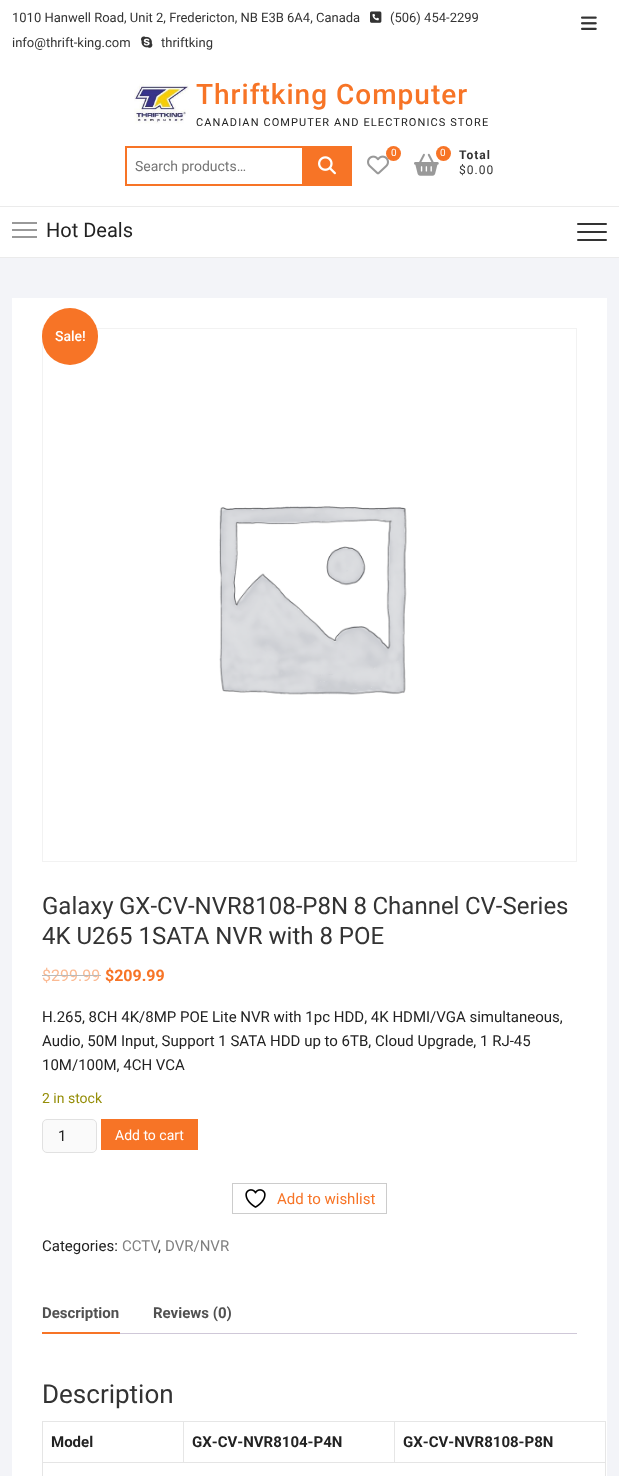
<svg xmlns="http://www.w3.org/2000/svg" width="619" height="1476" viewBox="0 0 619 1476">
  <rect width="100%" height="100%" fill="#f3f4f8"/>
  <rect x="0" y="0" width="619" height="257" fill="#ffffff"/>
  <text x="12" y="22" font-family="Roboto" font-size="13" fill="#333333">1010 Hanwell Road, Unit 2, Fredericton, NB E3B 6A4, Canada</text>
  <image x="370" y="11" width="12" height="12" href="img1.png"/>
  <text x="390" y="22" font-family="Roboto" font-size="13" fill="#333333">(506) 454-2299</text>
  <text x="12" y="47" font-family="Roboto" font-size="13" fill="#333333">info@thrift-king.com</text>
  <image x="141" y="36" width="12" height="12" href="img2.png"/>
  <text x="161" y="47" font-family="Roboto" font-size="13" fill="#333333">thriftking</text>
  <image x="581" y="16" width="16" height="14" href="img3.png"/>
  <image x="134" y="84" width="55" height="40" href="img4.png"/>
  <text x="196" y="104" font-family="Roboto" font-size="28" font-weight="500" letter-spacing="1" fill="#f77426">Thriftking Computer</text>
  <text x="196" y="126" font-family="Roboto" font-size="11" letter-spacing="1.1" fill="#222222">CANADIAN COMPUTER AND ELECTRONICS STORE</text>
  <rect x="125" y="146" width="177" height="2" fill="#f77426"/>
  <rect x="125" y="184" width="177" height="2" fill="#f77426"/>
  <rect x="125" y="146" width="2" height="40" fill="#f77426"/>
  <text x="135" y="171" font-family="Roboto" font-size="14" fill="#757575">Search products…</text>
  <rect x="302" y="146" width="50" height="40" fill="#f77426"/>
  <image x="318" y="156" width="18" height="19" href="img5.png"/>
  <image x="367" y="155" width="22" height="20" href="img6.png"/>
  <circle cx="393.5" cy="153.5" r="7.5" fill="#f77426"/>
  <text x="391" y="156" font-family="Roboto" font-size="10" fill="#ffffff">0</text>
  <image x="414" y="153" width="25" height="23" href="img7.png"/>
  <circle cx="443.5" cy="153.5" r="7.5" fill="#f77426"/>
  <text x="440" y="156" font-family="Roboto" font-size="10" fill="#ffffff">0</text>
  <text x="459" y="159" font-family="Roboto" font-size="12" font-weight="bold" letter-spacing="1" fill="#333333">Total</text>
  <text x="459" y="174" font-family="Roboto" font-size="12" letter-spacing="1" fill="#333333">$0.00</text>
  <rect x="0" y="206" width="619" height="1" fill="#ebebeb"/>
  <rect x="0" y="257" width="619" height="1" fill="#ebebeb"/>
  <rect x="12" y="229" width="25" height="2" fill="#999999"/>
  <rect x="12" y="222" width="25" height="2" fill="#999999"/>
  <rect x="12" y="236" width="25" height="2" fill="#999999"/>
  <text x="46" y="237" font-family="Roboto" font-size="20" fill="#222222">Hot Deals</text>
  <rect x="577" y="231" width="30" height="2" rx="1" fill="#333333"/>
  <rect x="577" y="223" width="30" height="2" rx="1" fill="#333333"/>
  <rect x="577" y="239" width="30" height="2" rx="1" fill="#333333"/>
  <rect x="12" y="298" width="595" height="1178" fill="#ffffff"/>
  <rect x="42.5" y="328.5" width="534" height="533" fill="none" stroke="#f2f2f2"/>
  <image x="219" y="506" width="188" height="189" href="img8.png"/>
  <rect x="42" y="308" width="56" height="57" rx="28" fill="#f77426"/>
  <text x="55" y="341" font-family="Roboto" font-size="14" font-weight="500" fill="#ffffff">Sale!</text>
  <text x="42" y="914" word-spacing="-0.5" font-family="Roboto" font-size="24" fill="#333333">Galaxy GX-CV-NVR8108-P8N 8 Channel CV-Series</text>
  <text x="42" y="944" font-family="Roboto" font-size="24" fill="#333333">4K U265 1SATA NVR with 8 POE</text>
  <text x="42" y="981" font-family="Roboto" font-size="16" fill="#fbba93">$299.99</text>
  <rect x="42" y="975" width="59" height="1" fill="#bababa"/>
  <text x="105" y="981" font-family="Roboto" font-size="16" font-weight="bold" fill="#f77426">$209.99</text>
  <text x="42" y="1022" font-family="Roboto" font-size="15" fill="#222222">H.265, 8CH 4K/8MP POE Lite NVR with 1pc HDD, 4K HDMI/VGA simultaneous,</text>
  <text x="42" y="1046" font-family="Roboto" font-size="15" fill="#222222">Audio, 50M Input, Support 1 SATA HDD up to 6TB, Cloud Upgrade, 1 RJ-45</text>
  <text x="42" y="1070" font-family="Roboto" font-size="15" fill="#222222">10M/100M, 4CH VCA</text>
  <text x="42" y="1103" font-family="Roboto" font-size="14" fill="#958e09">2 in stock</text>
  <rect x="42.5" y="1119.5" width="54" height="33" rx="4.5" fill="#fafafa" stroke="#e1e1e1"/>
  <text x="58" y="1141" font-family="Roboto" font-size="15" fill="#222222">1</text>
  <rect x="101" y="1119" width="97" height="31" fill="#f77426"/>
  <text x="115" y="1140" font-family="Roboto" font-size="14" fill="#ffffff">Add to cart</text>
  <rect x="232.5" y="1183.5" width="154" height="30" fill="none" stroke="#cccccc"/>
  <image x="245" y="1189" width="21" height="19" href="img9.png"/>
  <text x="277" y="1204" font-family="Roboto" font-size="15" fill="#f77426">Add to wishlist</text>
  <text x="42" y="1251" font-family="Roboto" font-size="15" fill="#222222">Categories:</text>
  <text x="122" y="1251" font-family="Roboto" font-size="15" fill="#808080">CCTV</text>
  <text x="165" y="1251" font-family="Roboto" font-size="15" fill="#808080">DVR/NVR</text>
  <text x="158" y="1251" font-family="Roboto" font-size="15" fill="#222222">,</text>
  <rect x="42" y="1332" width="78" height="2" fill="#f77426"/>
  <text x="42" y="1318" font-family="Roboto" font-size="15" font-weight="bold" fill="#515151">Description</text>
  <text x="153" y="1318" font-family="Roboto" font-size="15" font-weight="bold" fill="#515151">Reviews (0)</text>
  <rect x="120" y="1333" width="457" height="1" fill="#cfc8d8"/>
  <text x="42" y="1403" font-family="Roboto" font-size="26" fill="#333333">Description</text>
  <path d="M42 1421H606V1422H43Z" fill="#e6e6e6"/>
  <path d="M42 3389V1421L43 1422V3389Z" fill="#000000" fill-opacity="0.1"/>
  <path d="M184 1422V1463L183 1462V1422Z" fill="#e6e6e6"/>
  <path d="M184 1463H43V1462H183Z" fill="#000000" fill-opacity="0.1"/>
  <text x="51" y="1447" font-family="Roboto" font-size="15" font-weight="bold" fill="#222222">Model</text>
  <path d="M395 1422V1463L394 1462V1422Z" fill="#e6e6e6"/>
  <path d="M395 1463H184V1462H394Z" fill="#000000" fill-opacity="0.1"/>
  <text x="192" y="1447" font-family="Roboto" font-size="15" font-weight="bold" fill="#222222">GX-CV-NVR8104-P4N</text>
  <path d="M606 1422V1463L605 1462V1422Z" fill="#e6e6e6"/>
  <path d="M606 1463H395V1462H605Z" fill="#000000" fill-opacity="0.1"/>
  <text x="403" y="1447" font-family="Roboto" font-size="15" font-weight="bold" fill="#222222">GX-CV-NVR8108-P8N</text>
  <path d="M606 1463V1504L605 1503V1463Z" fill="#e6e6e6"/>
</svg>
